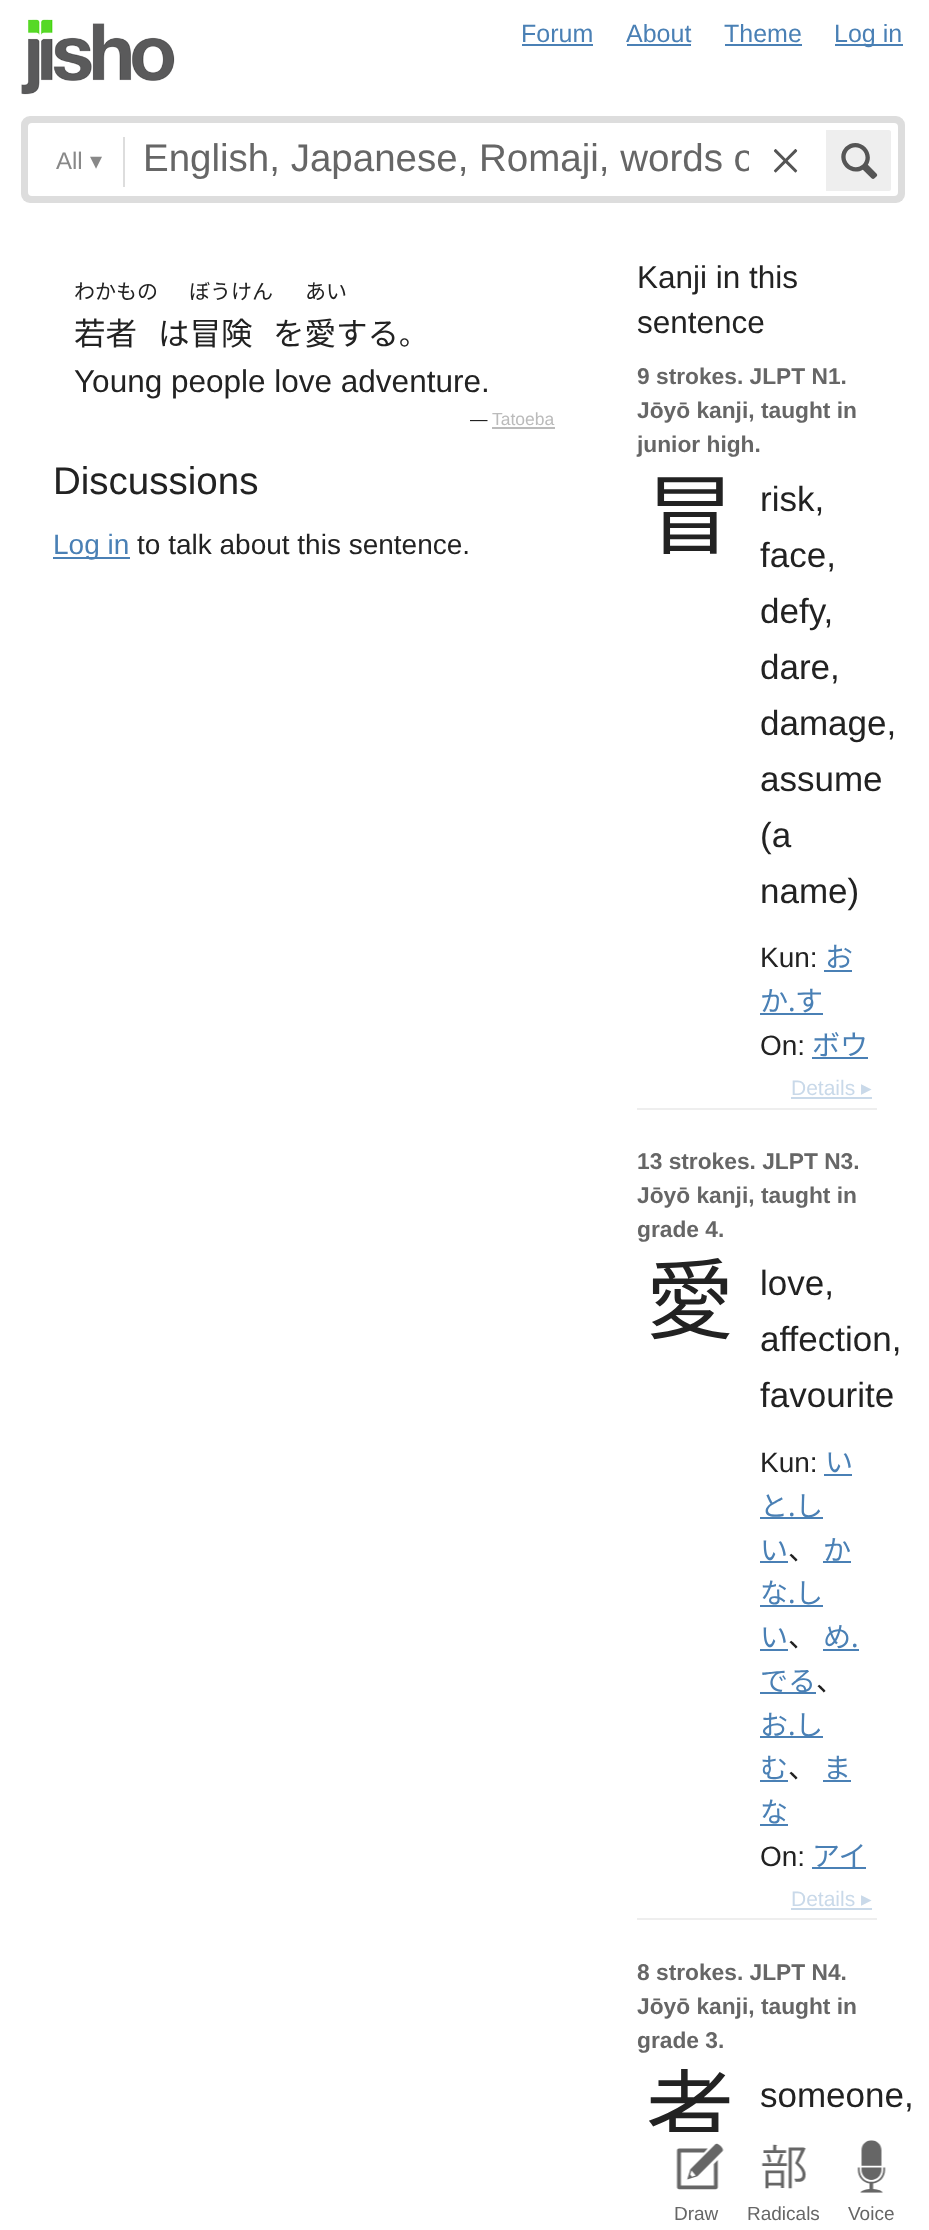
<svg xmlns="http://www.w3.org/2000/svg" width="929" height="2230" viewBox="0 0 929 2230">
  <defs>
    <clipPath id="clip1"><rect x="142" y="137" width="607" height="45"/></clipPath>
  </defs>
  <rect width="100%" height="100%" fill="#ffffff"/>
  <image x="21" y="19" width="154" height="76" href="img1.png"/>
  <text x="521" y="42" font-family="Liberation Sans" font-size="25" fill="#4a80b5">Forum</text>
  <rect x="522" y="44" width="71" height="2" fill="#4a80b5"/>
  <text x="626" y="42" font-family="Liberation Sans" font-size="25" fill="#4a80b5">About</text>
  <rect x="627" y="44" width="64" height="2" fill="#4a80b5"/>
  <text x="724" y="42" font-family="Liberation Sans" font-size="25" fill="#4a80b5">Theme</text>
  <rect x="725" y="44" width="77" height="2" fill="#4a80b5"/>
  <rect x="835" y="44" width="68" height="2" fill="#4a80b5"/>
  <text x="834" y="42" font-family="Liberation Sans" font-size="25" fill="#4a80b5">Log in</text>
  <rect x="21" y="116" width="884" height="87" rx="9" fill="#dddddd"/>
  <rect x="28" y="123" width="870" height="73" rx="4" fill="#ffffff"/>
  <rect x="123" y="137" width="2" height="50" fill="#dddddd"/>
  <text x="56" y="169" font-family="Liberation Sans" font-size="24" fill="#888888">All</text>
  <text x="90" y="169" font-family="DejaVu Sans" font-size="24" fill="#888888">▾</text>
  <g clip-path="url(#clip1)">
    <text x="143" y="171" font-family="Liberation Sans" font-size="38.5" fill="#666666">English, Japanese, Romaji, words o</text>
  </g>
  <image x="773" y="149" width="25" height="24" href="img2.png"/>
  <path d="M826 130H889C890 130 891 131 891 132V189C891 190 890 191 889 191H826Z" fill="#eeeeee"/>
  <image x="841" y="143" width="37" height="36" href="img3.png"/>
  <text x="646" y="2143" font-family="Noto Sans CJK JP" font-size="88" fill="#222222">者</text>
  <path d="M646 2132H915V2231H639V2139C639 2135 642 2132 646 2132Z" fill="#ffffff"/>
  <image x="676" y="2143" width="48" height="47" href="img4.png"/>
  <text x="674" y="2220" font-family="Liberation Sans" font-size="19" fill="#666666">Draw</text>
  <image x="761" y="2144" width="46" height="45" href="img5.png"/>
  <text x="747" y="2220" font-family="Liberation Sans" font-size="19" fill="#666666">Radicals</text>
  <image x="857" y="2140" width="29" height="53" href="img6.png"/>
  <text x="848" y="2220" font-family="Liberation Sans" font-size="19" fill="#666666">Voice</text>
  <text x="74" y="299" font-family="Noto Sans CJK JP" font-size="21" fill="#222222">わかもの</text>
  <text x="74" y="345" font-family="Noto Sans CJK JP" font-size="31.5" fill="#222222">若者</text>
  <text x="189" y="299" font-family="Noto Sans CJK JP" font-size="21" fill="#222222">ぼうけん</text>
  <text x="305" y="299" font-family="Noto Sans CJK JP" font-size="21" fill="#222222">あい</text>
  <text x="158" y="345" font-family="Noto Sans CJK JP" font-size="31.5" fill="#222222">は冒険</text>
  <text x="273" y="345" font-family="Noto Sans CJK JP" font-size="31.5" fill="#222222">を愛する</text>
  <text x="399" y="345" font-family="Noto Sans CJK JP" font-size="28" fill="#222222">。</text>
  <text x="74" y="392" font-family="Liberation Sans" font-size="31.5" fill="#222222">Young people love adventure.</text>
  <text x="470" y="425" font-family="Liberation Sans" font-size="17.5" fill="#222222">—</text>
  <text x="492" y="425" font-family="Liberation Sans" font-size="17.5" fill="#bbbbbb">Tatoeba</text>
  <rect x="492" y="427" width="63" height="2" fill="#bbbbbb"/>
  <text x="53" y="494" font-family="Liberation Sans" font-size="38.5" fill="#222222">Discussions</text>
  <rect x="53" y="557" width="77" height="2" fill="#4a80b5"/>
  <text x="53" y="554" font-family="Liberation Sans" font-size="28" fill="#4a80b5">Log in</text>
  <text x="137" y="554" font-family="Liberation Sans" font-size="28" fill="#222222">to talk about this sentence.</text>
  <text x="637" y="288" font-family="Liberation Sans" font-size="31.5" fill="#222222">Kanji in this</text>
  <text x="637" y="333" font-family="Liberation Sans" font-size="31.5" fill="#222222">sentence</text>
  <rect x="637" y="1108" width="240" height="2" fill="#eeeeee"/>
  <text x="637" y="384" font-family="Liberation Sans" font-size="22.75" font-weight="bold" fill="#666666">9 strokes. JLPT N1.</text>
  <text x="637" y="418" font-family="Liberation Sans" font-size="22.75" font-weight="bold" fill="#666666">Jōyō kanji, taught in</text>
  <text x="637" y="452" font-family="Liberation Sans" font-size="22.75" font-weight="bold" fill="#666666">junior high.</text>
  <text x="646" y="547" font-family="Noto Sans CJK JP" font-size="88" fill="#222222">冒</text>
  <text x="760" y="511" font-family="Liberation Sans" font-size="35" fill="#222222">risk,</text>
  <text x="760" y="567" font-family="Liberation Sans" font-size="35" fill="#222222">face,</text>
  <text x="760" y="623" font-family="Liberation Sans" font-size="35" fill="#222222">defy,</text>
  <text x="760" y="679" font-family="Liberation Sans" font-size="35" fill="#222222">dare,</text>
  <text x="760" y="735" font-family="Liberation Sans" font-size="35" fill="#222222">damage,</text>
  <text x="760" y="791" font-family="Liberation Sans" font-size="35" fill="#222222">assume</text>
  <text x="760" y="847" font-family="Liberation Sans" font-size="35" fill="#222222">(a</text>
  <text x="760" y="903" font-family="Liberation Sans" font-size="35" fill="#222222">name)</text>
  <text x="760" y="967" font-family="Liberation Sans" font-size="28" fill="#222222">Kun:</text>
  <text x="825" y="967" font-family="Noto Sans CJK JP" font-size="28" fill="#4a80b5">お</text>
  <rect x="824" y="970" width="28" height="2" fill="#4a80b5"/>
  <text x="760" y="1011" font-family="Noto Sans CJK JP" font-size="28" fill="#4a80b5">か</text>
  <text x="788" y="1011" font-family="Noto Sans" font-size="28" fill="#4a80b5">.</text>
  <rect x="760" y="1013" width="63" height="2" fill="#4a80b5"/>
  <text x="795" y="1011" font-family="Noto Sans CJK JP" font-size="28" fill="#4a80b5">す</text>
  <text x="760" y="1055" font-family="Liberation Sans" font-size="28" fill="#222222">On:</text>
  <text x="812" y="1055" font-family="Noto Sans CJK JP" font-size="28" fill="#4a80b5">ボウ</text>
  <rect x="812" y="1057" width="56" height="2" fill="#4a80b5"/>
  <text x="791" y="1095" font-family="Liberation Sans" font-size="21" fill="#c9d9e9">Details</text>
  <text x="861" y="1095" font-family="DejaVu Sans" font-size="21" fill="#c9d9e9">▸</text>
  <rect x="791" y="1097" width="81" height="2" fill="#c9d9e9"/>
  <rect x="637" y="1918" width="240" height="2" fill="#eeeeee"/>
  <text x="637" y="1169" font-family="Liberation Sans" font-size="22.75" font-weight="bold" fill="#666666">13 strokes. JLPT N3.</text>
  <text x="637" y="1203" font-family="Liberation Sans" font-size="22.75" font-weight="bold" fill="#666666">Jōyō kanji, taught in</text>
  <text x="637" y="1237" font-family="Liberation Sans" font-size="22.75" font-weight="bold" fill="#666666">grade 4.</text>
  <text x="646" y="1332" font-family="Noto Sans CJK JP" font-size="88" fill="#222222">愛</text>
  <text x="760" y="1295" font-family="Liberation Sans" font-size="35" fill="#222222">love,</text>
  <text x="760" y="1351" font-family="Liberation Sans" font-size="35" fill="#222222">affection,</text>
  <text x="760" y="1407" font-family="Liberation Sans" font-size="35" fill="#222222">favourite</text>
  <text x="760" y="1472" font-family="Liberation Sans" font-size="28" fill="#222222">Kun:</text>
  <text x="825" y="1472" font-family="Noto Sans CJK JP" font-size="28" fill="#4a80b5">い</text>
  <rect x="824" y="1474" width="28" height="2" fill="#4a80b5"/>
  <text x="760" y="1516" font-family="Noto Sans CJK JP" font-size="28" fill="#4a80b5">と</text>
  <text x="788" y="1516" font-family="Noto Sans" font-size="28" fill="#4a80b5">.</text>
  <rect x="760" y="1517" width="63" height="2" fill="#4a80b5"/>
  <text x="795" y="1516" font-family="Noto Sans CJK JP" font-size="28" fill="#4a80b5">し</text>
  <text x="760" y="1560" font-family="Noto Sans CJK JP" font-size="28" fill="#4a80b5">い</text>
  <text x="788" y="1560" font-family="Noto Sans CJK JP" font-size="28" fill="#222222">、</text>
  <rect x="760" y="1561" width="28" height="2" fill="#4a80b5"/>
  <text x="823" y="1560" font-family="Noto Sans CJK JP" font-size="28" fill="#4a80b5">か</text>
  <rect x="823" y="1561" width="28" height="2" fill="#4a80b5"/>
  <text x="760" y="1603" font-family="Noto Sans CJK JP" font-size="28" fill="#4a80b5">な</text>
  <text x="788" y="1603" font-family="Noto Sans" font-size="28" fill="#4a80b5">.</text>
  <rect x="760" y="1605" width="63" height="2" fill="#4a80b5"/>
  <text x="795" y="1603" font-family="Noto Sans CJK JP" font-size="28" fill="#4a80b5">し</text>
  <text x="760" y="1647" font-family="Noto Sans CJK JP" font-size="28" fill="#4a80b5">い</text>
  <text x="788" y="1647" font-family="Noto Sans CJK JP" font-size="28" fill="#222222">、</text>
  <rect x="760" y="1649" width="28" height="2" fill="#4a80b5"/>
  <text x="823" y="1647" font-family="Noto Sans CJK JP" font-size="28" fill="#4a80b5">め</text>
  <text x="851" y="1647" font-family="Noto Sans" font-size="28" fill="#4a80b5">.</text>
  <rect x="823" y="1649" width="36" height="2" fill="#4a80b5"/>
  <rect x="760" y="1692" width="56" height="2" fill="#4a80b5"/>
  <text x="760" y="1691" font-family="Noto Sans CJK JP" font-size="28" fill="#4a80b5">でる</text>
  <text x="816" y="1691" font-family="Noto Sans CJK JP" font-size="28" fill="#222222">、</text>
  <text x="760" y="1735" font-family="Noto Sans CJK JP" font-size="28" fill="#4a80b5">お</text>
  <text x="788" y="1735" font-family="Noto Sans" font-size="28" fill="#4a80b5">.</text>
  <rect x="760" y="1736" width="63" height="2" fill="#4a80b5"/>
  <text x="795" y="1735" font-family="Noto Sans CJK JP" font-size="28" fill="#4a80b5">し</text>
  <text x="760" y="1778" font-family="Noto Sans CJK JP" font-size="28" fill="#4a80b5">む</text>
  <text x="788" y="1778" font-family="Noto Sans CJK JP" font-size="28" fill="#222222">、</text>
  <rect x="760" y="1780" width="28" height="2" fill="#4a80b5"/>
  <text x="823" y="1778" font-family="Noto Sans CJK JP" font-size="28" fill="#4a80b5">ま</text>
  <rect x="823" y="1780" width="28" height="2" fill="#4a80b5"/>
  <text x="760" y="1822" font-family="Noto Sans CJK JP" font-size="28" fill="#4a80b5">な</text>
  <rect x="760" y="1824" width="28" height="2" fill="#4a80b5"/>
  <text x="760" y="1866" font-family="Liberation Sans" font-size="28" fill="#222222">On:</text>
  <text x="812" y="1866" font-family="Noto Sans CJK JP" font-size="28" fill="#4a80b5">アイ</text>
  <rect x="812" y="1867" width="54" height="2" fill="#4a80b5"/>
  <text x="791" y="1906" font-family="Liberation Sans" font-size="21" fill="#c9d9e9">Details</text>
  <text x="861" y="1906" font-family="DejaVu Sans" font-size="21" fill="#c9d9e9">▸</text>
  <rect x="791" y="1908" width="81" height="2" fill="#c9d9e9"/>
  <text x="637" y="1980" font-family="Liberation Sans" font-size="22.75" font-weight="bold" fill="#666666">8 strokes. JLPT N4.</text>
  <text x="637" y="2014" font-family="Liberation Sans" font-size="22.75" font-weight="bold" fill="#666666">Jōyō kanji, taught in</text>
  <text x="637" y="2048" font-family="Liberation Sans" font-size="22.75" font-weight="bold" fill="#666666">grade 3.</text>
  <text x="760" y="2107" font-family="Liberation Sans" font-size="35" fill="#222222">someone,</text>
</svg>
